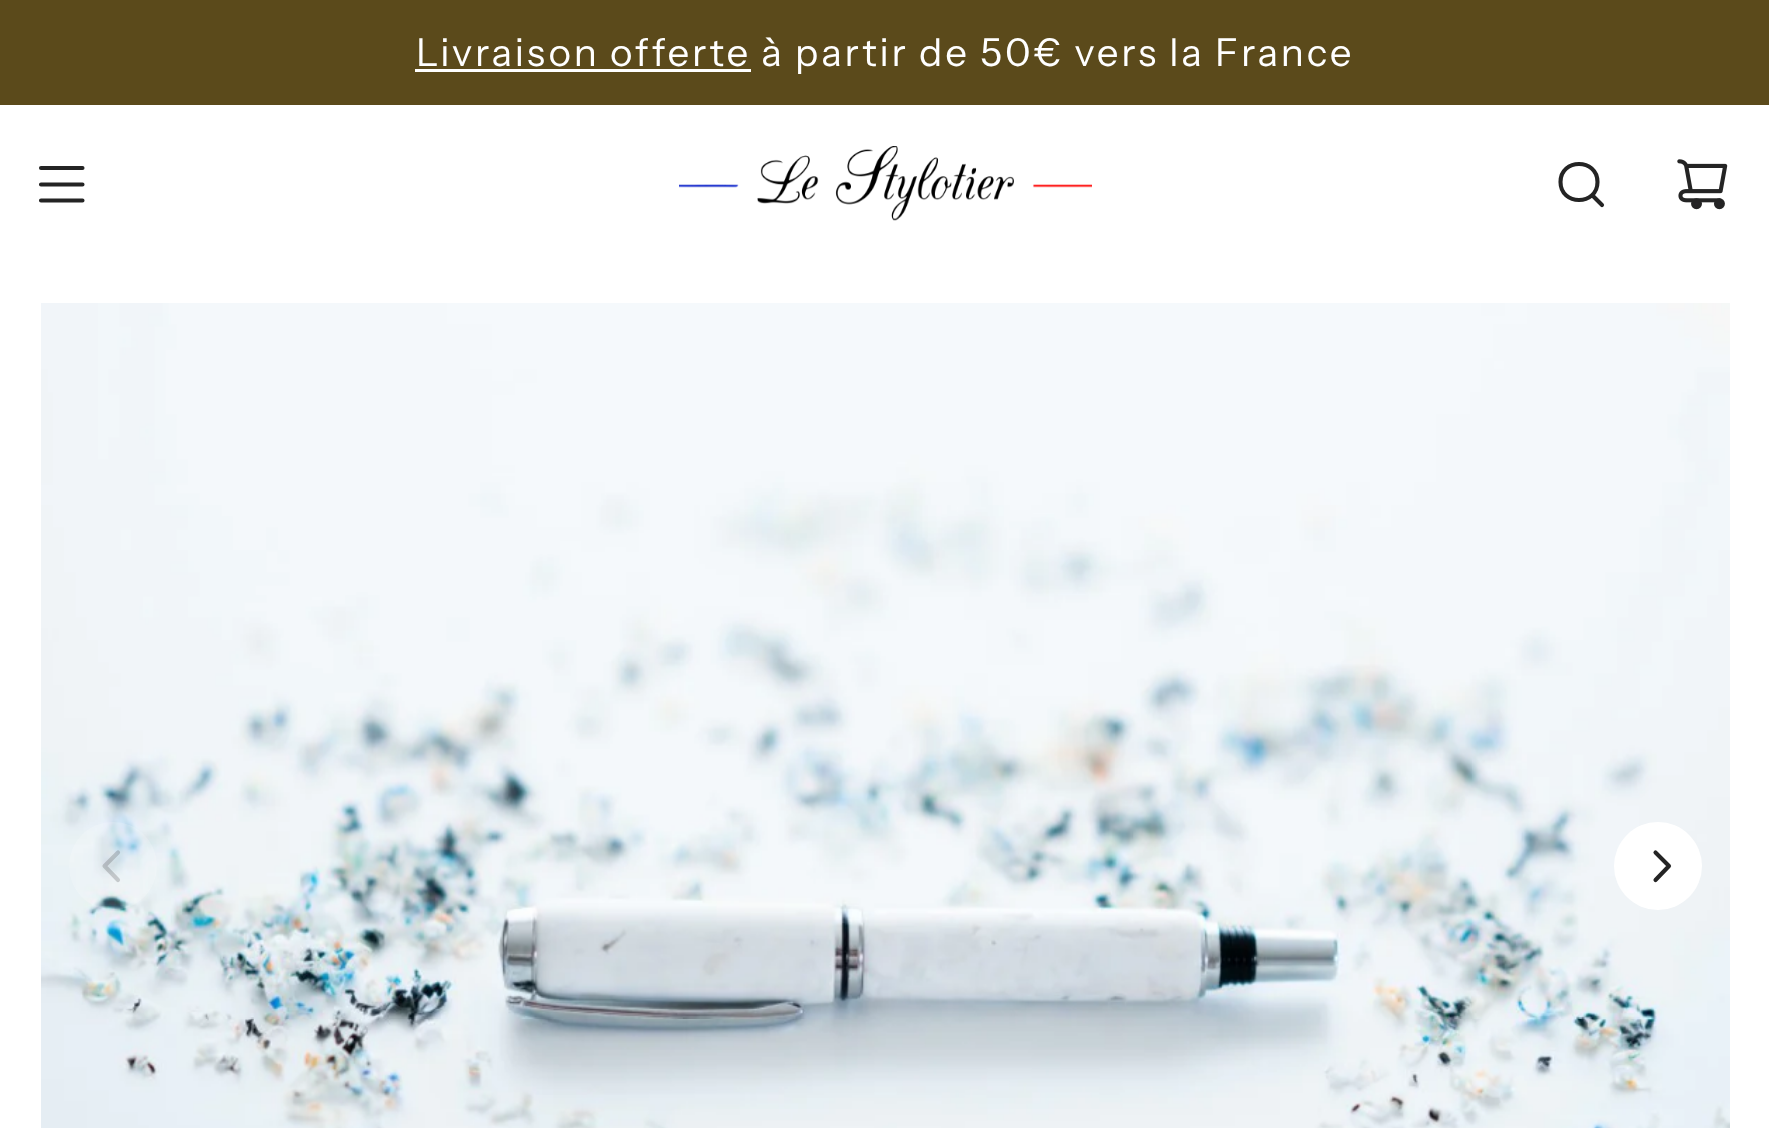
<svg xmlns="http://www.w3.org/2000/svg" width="1769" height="1128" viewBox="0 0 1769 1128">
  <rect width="100%" height="100%" fill="#ffffff"/>
  <rect x="0" y="0" width="1769" height="105" fill="#5b4a1b"/>
  <rect x="415" y="69" width="336" height="3" fill="#ffffff"/>
  <text x="416" y="66" font-family="Instrument Sans" font-size="38.5" letter-spacing="2.75" fill="#ffffff">Livraison offerte à partir de 50€ vers la France</text>
  <path d="M41 168H82.5M41 184.5H82.5M41 200.5H82.5" fill="none" stroke="#242424" stroke-width="4.1" stroke-linecap="round" stroke-linejoin="round"/>
  <image x="679" y="146" width="413" height="75" href="img1.png"/>
  <path d="M1592.5 195.5L1602 205M1560.5 182C1560.5 206 1597.5 206 1597.5 182C1597.5 158 1560.5 158 1560.5 182Z" fill="none" stroke="#242424" stroke-width="4.1" stroke-linecap="round" stroke-linejoin="round"/>
  <image x="1677" y="159" width="51" height="51" href="img2.png"/>
  <image x="41" y="303" width="1689" height="825" href="img3.png"/>
  <circle cx="113" cy="866" r="44" fill="#ffffff" fill-opacity="0.2"/>
  <path d="M118 852.5L104.5 866L118 880" fill="none" stroke="#242424" stroke-opacity="0.2" stroke-width="4.1" stroke-linecap="round" stroke-linejoin="round"/>
  <circle cx="1658" cy="866" r="44" fill="#ffffff"/>
  <path d="M1655.5 852.5L1669 866L1655.5 880" fill="none" stroke="#242424" stroke-width="4.1" stroke-linecap="round" stroke-linejoin="round"/>
</svg>
